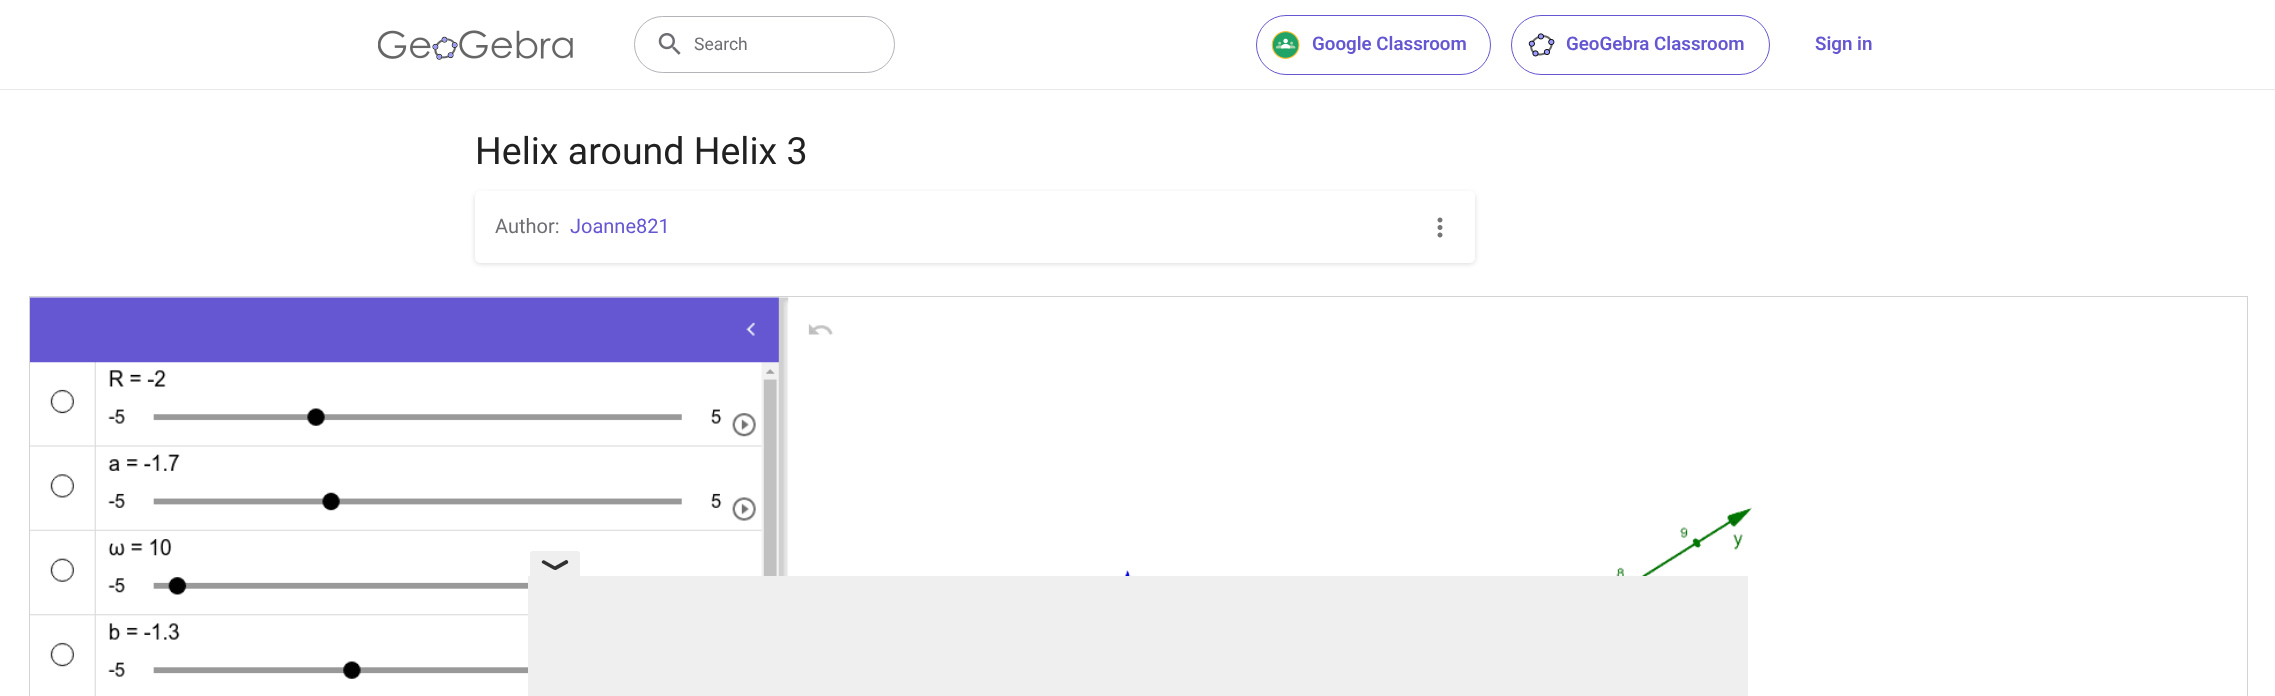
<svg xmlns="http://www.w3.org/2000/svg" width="2275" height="696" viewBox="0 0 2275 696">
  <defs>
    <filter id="blur1" x="-50%" y="-200%" width="200%" height="500%"><feGaussianBlur stdDeviation="2.5"/></filter>
  </defs>
  <rect width="100%" height="100%" fill="#ffffff"/>
  <rect x="0" y="89" width="2275" height="1" fill="#e6e6eb"/>
  <image x="378" y="30" width="195" height="30" href="img1.png"/>
  <rect x="634.5" y="16.5" width="260" height="56" rx="28" fill="none" stroke="#b4b3ba"/>
  <image x="658" y="33" width="23" height="22" href="img2.png"/>
  <text x="694" y="50" font-family="Roboto" font-size="17.5" fill="#6e6d73">Search</text>
  <rect x="1256.5" y="15.5" width="234" height="59" rx="29.5" fill="none" stroke="#6557d2"/>
  <image x="1271" y="31" width="29" height="28" href="img3.png"/>
  <text x="1312" y="50" font-family="Roboto" font-size="18.75" font-weight="600" fill="#6557d2">Google Classroom</text>
  <rect x="1511.5" y="15.5" width="258" height="59" rx="29.5" fill="none" stroke="#6557d2"/>
  <image x="1528" y="33" width="27" height="24" href="img4.png"/>
  <text x="1566" y="50" font-family="Roboto" font-size="18.75" font-weight="600" fill="#6557d2">GeoGebra Classroom</text>
  <text x="1815" y="50" font-family="Roboto" font-size="18.75" font-weight="600" fill="#6557d2">Sign in</text>
  <text x="475" y="164" font-family="Roboto" font-size="37.5" fill="#212121">Helix around Helix 3</text>
  <rect x="475" y="193" width="1000" height="71" rx="5" fill="#1c1c1f" fill-opacity="0.14" filter="url(#blur1)"/>
  <rect x="475" y="191" width="1000" height="72" rx="5" fill="#ffffff"/>
  <text x="495" y="233" font-family="Roboto" font-size="20" fill="#6e6d73">Author:</text>
  <text x="570" y="233" font-family="Roboto" font-size="20" fill="#6557d2">Joanne821</text>
  <image x="1437" y="217" width="6" height="21" href="img5.png"/>
  <image x="30" y="297" width="1722" height="399" href="img6.png"/>
  <rect x="29.5" y="296.5" width="2218" height="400" fill="none" stroke="#d3d3d3"/>
  <path d="M532.5 551H577.5C579 551 580 552 580 553.5V576H530V553.5C530 552 531 551 532.5 551Z" fill="#efefef"/>
  <path d="M544.5 560.5L556 567C557 568.5 555 570.5 553.5 569.5L542 563C541 561.5 543 559.5 544.5 560.5Z" fill="#313131"/>
  <path d="M554.5 566.5L566 560C568 560 569 562.5 567.5 563.5L556 570C554 570 553 567.5 554.5 566.5Z" fill="#313131"/>
  <rect x="528" y="576" width="1220" height="120" fill="#efefef"/>
</svg>
